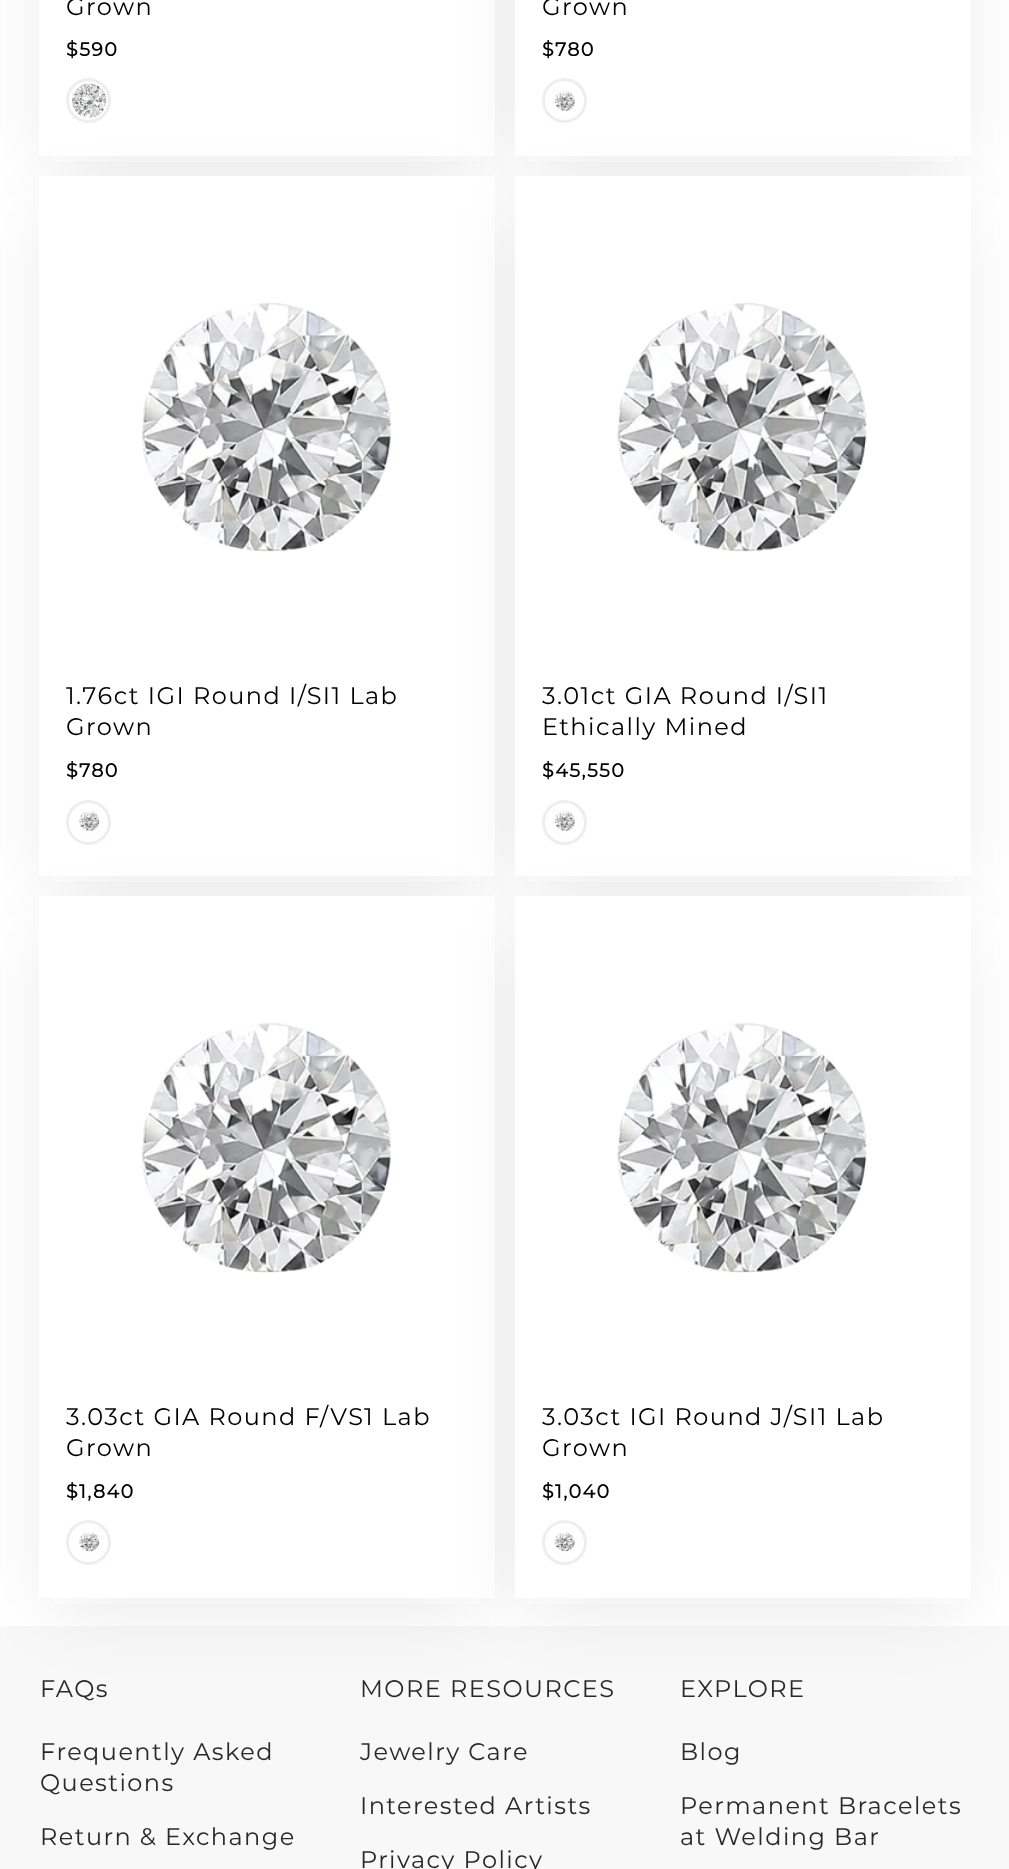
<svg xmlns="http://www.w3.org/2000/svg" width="1009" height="1869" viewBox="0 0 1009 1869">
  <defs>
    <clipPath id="clip1"><path d="M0 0H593V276H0ZM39-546H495V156H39Z" clip-rule="evenodd"/></clipPath>
    <filter id="blur1" x="-50%" y="-200%" width="200%" height="500%"><feGaussianBlur stdDeviation="37.5"/></filter>
  </defs>
  <rect width="100%" height="100%" fill="#f8f8f8"/>
  <rect x="0" y="0" width="1009" height="1626" fill="#ffffff"/>
  <g clip-path="url(#clip1)">
    <rect x="53" y="-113" width="426" height="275" fill="#292929" fill-opacity="0.1" filter="url(#blur1)"/>
  </g>
  <text x="66" y="15" font-family="Montserrat" font-size="24" letter-spacing="1.45" fill="#000000">Grown</text>
  <text x="66" y="56" font-family="Montserrat" font-size="19" font-weight="bold" letter-spacing="1.45" fill="#000000">$590</text>
  <circle cx="88.5" cy="100.5" r="21" fill="none" stroke="#f2eded" stroke-width="3"/>
  <image x="72" y="83" width="35" height="35" href="img1.png"/>
  <rect x="528" y="-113" width="426" height="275" fill="#292929" fill-opacity="0.1" filter="url(#blur1)"/>
  <rect x="515" y="0" width="456" height="156" fill="#ffffff"/>
  <text x="542" y="15" font-family="Montserrat" font-size="24" letter-spacing="1.45" fill="#000000">Grown</text>
  <text x="542" y="56" font-family="Montserrat" font-size="19" font-weight="bold" letter-spacing="1.45" fill="#000000">$780</text>
  <circle cx="564.5" cy="100.5" r="21" fill="none" stroke="#f2eded" stroke-width="3"/>
  <image x="554" y="90" width="21" height="21" href="img2.png"/>
  <rect x="53" y="212" width="426" height="670" fill="#292929" fill-opacity="0.1" filter="url(#blur1)"/>
  <rect x="39" y="176" width="456" height="700" fill="#ffffff"/>
  <image x="142" y="302" width="249" height="250" href="img3.png"/>
  <text x="66" y="704" font-family="Montserrat" font-size="24" letter-spacing="1.45" fill="#000000">1.76ct IGI Round I/SI1 Lab</text>
  <text x="66" y="735" font-family="Montserrat" font-size="24" letter-spacing="1.45" fill="#000000">Grown</text>
  <text x="66" y="777" font-family="Montserrat" font-size="19" font-weight="bold" letter-spacing="1.45" fill="#000000">$780</text>
  <circle cx="88.5" cy="822.5" r="21" fill="none" stroke="#f2eded" stroke-width="3"/>
  <image x="79" y="810" width="21" height="21" href="img4.png"/>
  <rect x="528" y="212" width="426" height="670" fill="#292929" fill-opacity="0.1" filter="url(#blur1)"/>
  <rect x="515" y="176" width="456" height="700" fill="#ffffff"/>
  <image x="617" y="302" width="250" height="250" href="img5.png"/>
  <text x="542" y="704" font-family="Montserrat" font-size="24" letter-spacing="1.45" fill="#000000">3.01ct GIA Round I/SI1</text>
  <text x="542" y="735" font-family="Montserrat" font-size="24" letter-spacing="1.45" fill="#000000">Ethically Mined</text>
  <text x="542" y="777" font-family="Montserrat" font-size="19" font-weight="bold" letter-spacing="1.45" fill="#000000">$45,550</text>
  <circle cx="564.5" cy="822.5" r="21" fill="none" stroke="#f2eded" stroke-width="3"/>
  <image x="554" y="810" width="21" height="21" href="img2.png"/>
  <rect x="53" y="932" width="426" height="672" fill="#292929" fill-opacity="0.1" filter="url(#blur1)"/>
  <rect x="39" y="896" width="456" height="702" fill="#ffffff"/>
  <image x="142" y="1022" width="249" height="251" href="img6.png"/>
  <text x="66" y="1425" font-family="Montserrat" font-size="24" letter-spacing="1.45" fill="#000000">3.03ct GIA Round F/VS1 Lab</text>
  <text x="66" y="1456" font-family="Montserrat" font-size="24" letter-spacing="1.45" fill="#000000">Grown</text>
  <text x="66" y="1498" font-family="Montserrat" font-size="19" font-weight="bold" letter-spacing="1.45" fill="#000000">$1,840</text>
  <circle cx="88.5" cy="1542.5" r="21" fill="none" stroke="#f2eded" stroke-width="3"/>
  <image x="79" y="1532" width="21" height="20" href="img7.png"/>
  <rect x="528" y="932" width="426" height="672" fill="#292929" fill-opacity="0.1" filter="url(#blur1)"/>
  <rect x="515" y="896" width="456" height="702" fill="#ffffff"/>
  <image x="617" y="1022" width="250" height="251" href="img8.png"/>
  <text x="542" y="1425" font-family="Montserrat" font-size="24" letter-spacing="1.45" fill="#000000">3.03ct IGI Round J/SI1 Lab</text>
  <text x="542" y="1456" font-family="Montserrat" font-size="24" letter-spacing="1.45" fill="#000000">Grown</text>
  <text x="542" y="1498" font-family="Montserrat" font-size="19" font-weight="bold" letter-spacing="1.45" fill="#000000">$1,040</text>
  <circle cx="564.5" cy="1542.5" r="21" fill="none" stroke="#f2eded" stroke-width="3"/>
  <image x="554" y="1532" width="21" height="20" href="img9.png"/>
  <text x="40" y="1697" font-family="Montserrat" font-size="24" letter-spacing="1.45" fill="#282828">FAQs</text>
  <text x="40" y="1760" font-family="Montserrat" font-size="24" letter-spacing="1.45" fill="#282828">Frequently Asked</text>
  <text x="40" y="1791" font-family="Montserrat" font-size="24" letter-spacing="1.45" fill="#282828">Questions</text>
  <text x="40" y="1845" font-family="Montserrat" font-size="24" letter-spacing="1.45" fill="#282828">Return &amp; Exchange</text>
  <text x="360" y="1697" font-family="Montserrat" font-size="24" letter-spacing="1.45" fill="#282828">MORE RESOURCES</text>
  <text x="360" y="1760" font-family="Montserrat" font-size="24" letter-spacing="1.45" fill="#282828">Jewelry Care</text>
  <text x="360" y="1814" font-family="Montserrat" font-size="24" letter-spacing="1.45" fill="#282828">Interested Artists</text>
  <text x="360" y="1868" font-family="Montserrat" font-size="24" letter-spacing="1.45" fill="#282828">Privacy Policy</text>
  <text x="680" y="1697" font-family="Montserrat" font-size="24" letter-spacing="1.45" fill="#282828">EXPLORE</text>
  <text x="680" y="1760" font-family="Montserrat" font-size="24" letter-spacing="1.45" fill="#282828">Blog</text>
  <text x="680" y="1814" font-family="Montserrat" font-size="24" letter-spacing="1.45" fill="#282828">Permanent Bracelets</text>
  <text x="680" y="1845" font-family="Montserrat" font-size="24" letter-spacing="1.45" fill="#282828">at Welding Bar</text>
</svg>
